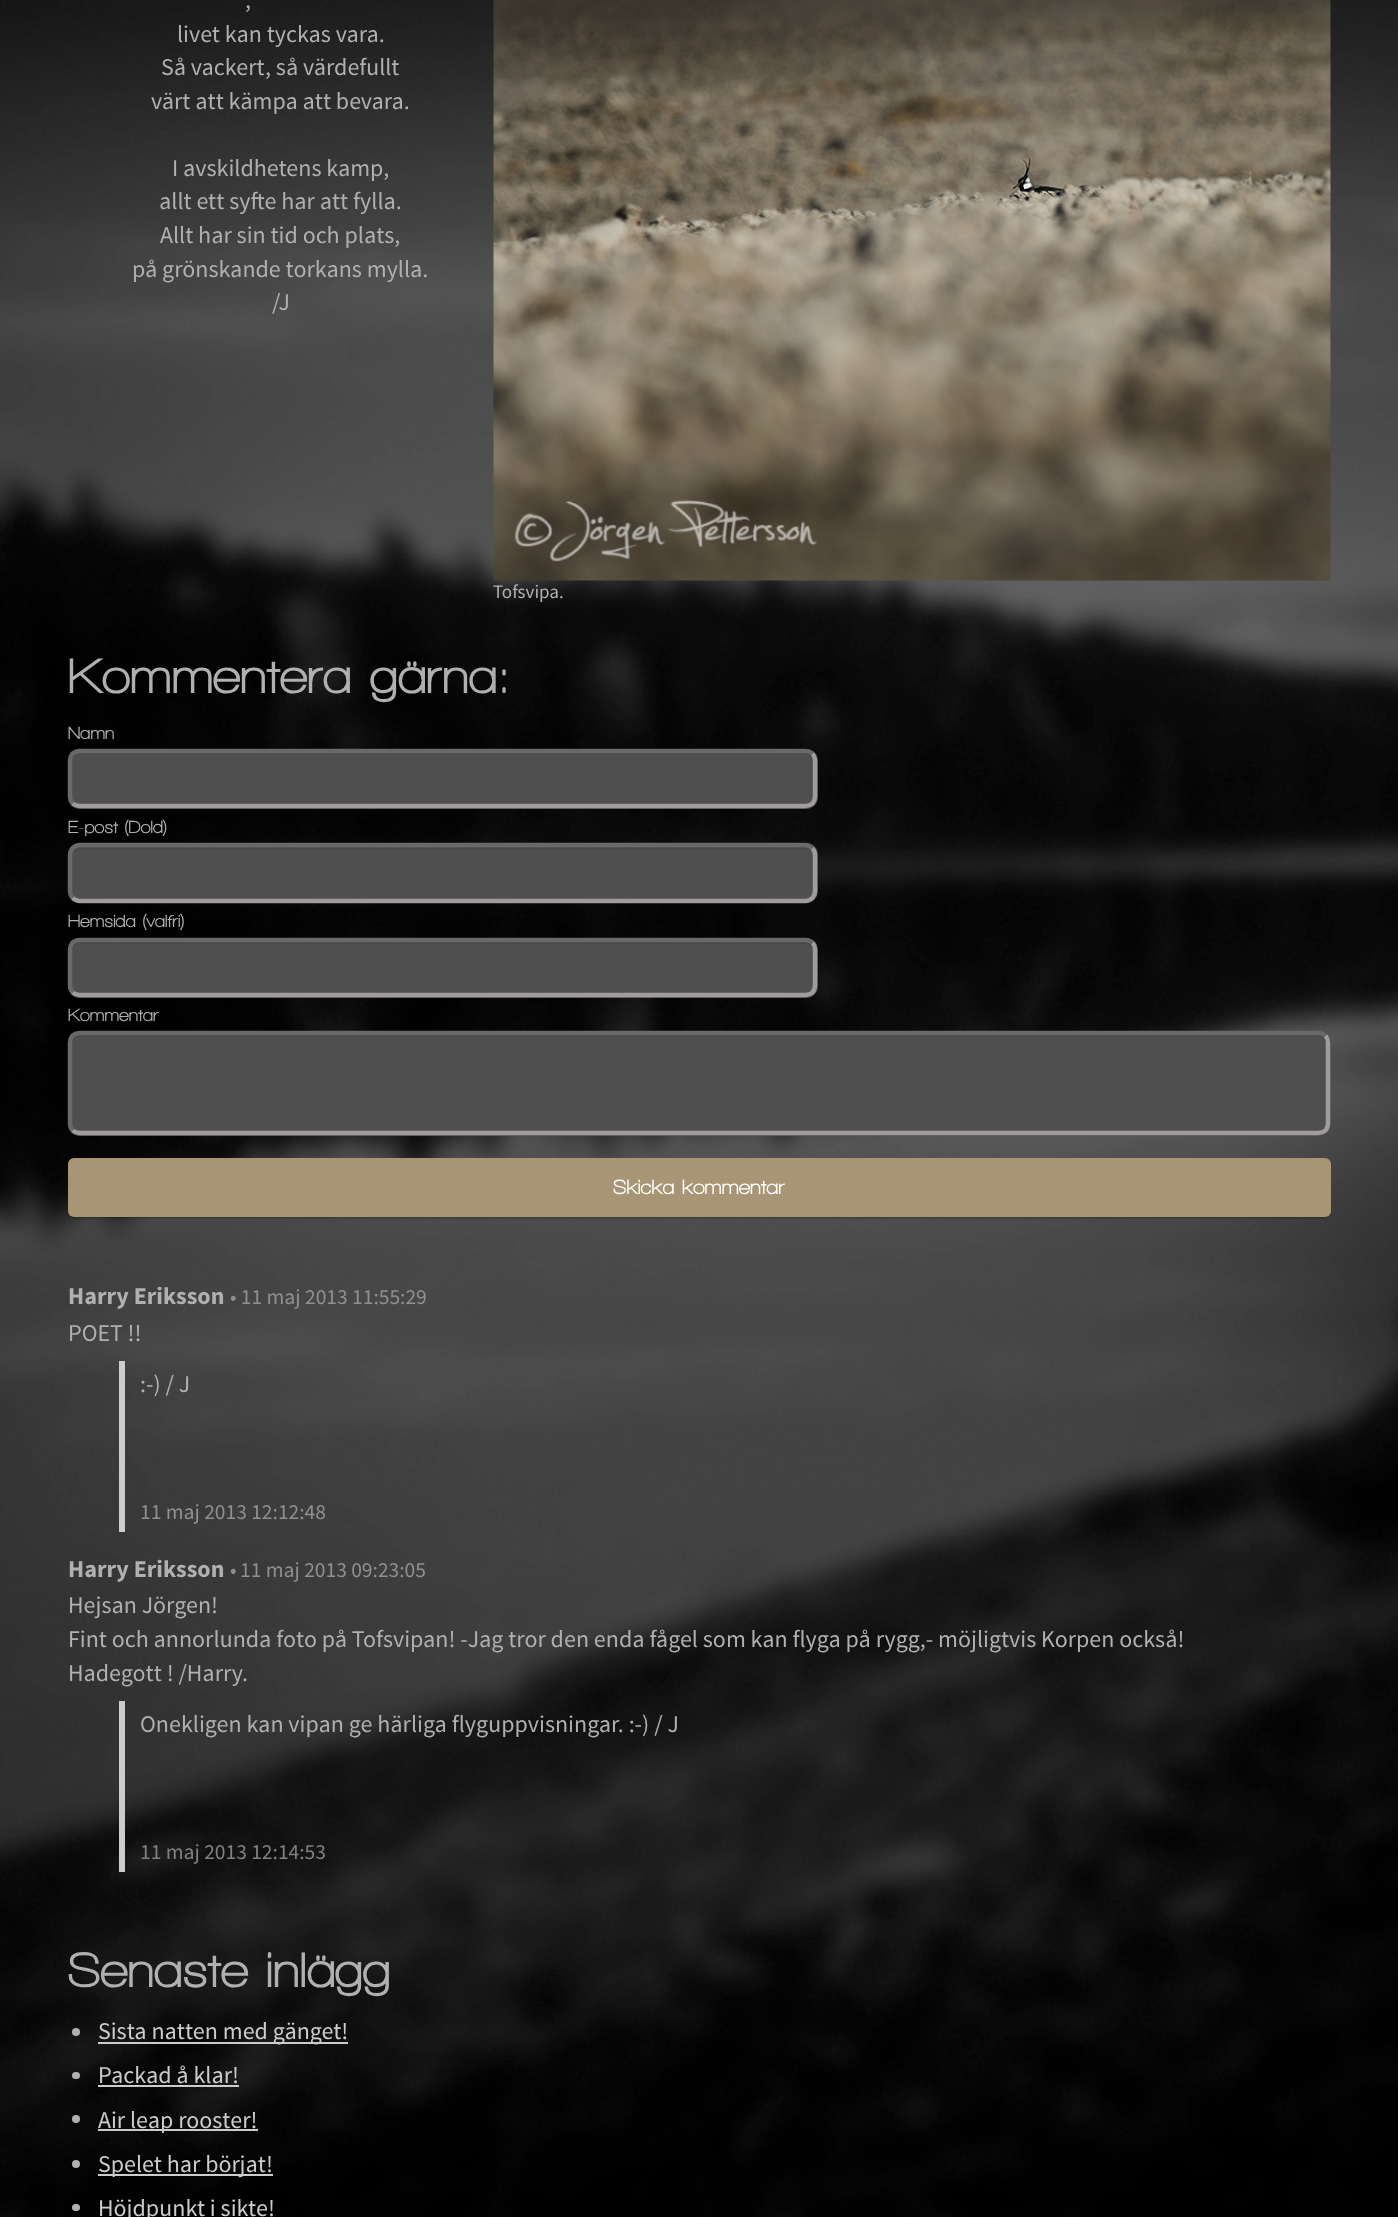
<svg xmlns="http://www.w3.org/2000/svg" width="1398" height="2217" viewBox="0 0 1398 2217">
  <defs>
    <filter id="blur1" x="-50%" y="-200%" width="200%" height="500%"><feGaussianBlur stdDeviation="1.5"/></filter>
  </defs>
  <rect width="100%" height="100%" fill="#ffffff"/>
  <image x="0" y="0" width="1398" height="2217" href="img1.png"/>
  <text x="245" y="8" font-family="Source Sans Pro" font-size="24" fill="#b0b0b0">,</text>
  <text x="177" y="42" font-family="Source Sans Pro" font-size="24" fill="#b0b0b0">livet kan tyckas vara.</text>
  <text x="161" y="75" font-family="Source Sans Pro" font-size="24" fill="#b0b0b0">Så vackert, så värdefullt</text>
  <text x="151" y="109" font-family="Source Sans Pro" font-size="24" fill="#b0b0b0">värt att kämpa att bevara.</text>
  <text x="172" y="176" font-family="Source Sans Pro" font-size="24" fill="#b0b0b0">I avskildhetens kamp,</text>
  <text x="159" y="209" font-family="Source Sans Pro" font-size="24" fill="#b0b0b0">allt ett syfte har att fylla.</text>
  <text x="160" y="243" font-family="Source Sans Pro" font-size="24" fill="#b0b0b0">Allt har sin tid och plats,</text>
  <text x="132" y="277" font-family="Source Sans Pro" font-size="24" fill="#b0b0b0">på grönskande torkans mylla.</text>
  <text x="272" y="310" font-family="Source Sans Pro" font-size="24" fill="#b0b0b0">/J</text>
  <image x="493" y="0" width="838" height="581" href="img2.png"/>
  <text x="493" y="598" font-family="Source Sans Pro" font-size="19" fill="#b0b0b0">Tofsvipa.</text>
  <text x="68" y="693" font-family="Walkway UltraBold" font-size="51" font-weight="800" fill="#b0b0b0">Kommentera gärna:</text>
  <text x="68" y="739" font-family="Walkway UltraBold" font-size="18" font-weight="800" fill="#b0b0b0">Namn</text>
  <rect x="68" y="749" width="750" height="60" rx="12" fill="#4f4f4f"/>
  <path d="M80 754H806C810 754 813 758 813 762C813 757 810 753 805 753H80C75 753 72 757 72 762C72 758 75 754 80 754Z" fill="#494949"/>
  <path d="M812.5 753.5C814 755.5 815 758 815 760.5V796.5C815 799 814 801.5 812.5 803.5C810.5 805 808 806 805.5 806H79.5C77 806 74.5 805 72.5 803.5" fill="none" stroke="#a09c9c" stroke-width="4.5"/>
  <path d="M72.5 803.5C71 801.5 70 799 70 796.5V760.5C70 758 71 755.5 72.5 753.5C74.5 752 77 751 79.5 751H805.5C808 751 810.5 752 812.5 753.5" fill="none" stroke="#6b6868" stroke-width="4.5"/>
  <text x="68" y="833" font-family="Walkway UltraBold" font-size="18" font-weight="800" fill="#b0b0b0">E-post (Dold)</text>
  <rect x="68" y="843" width="750" height="60" rx="12" fill="#4f4f4f"/>
  <path d="M80 849H806C810 849 813 852 813 856C813 852 809 848 805 848H80C76 848 72 852 72 856C72 852 75 849 80 849Z" fill="#494949"/>
  <path d="M812.5 848C814 850 815 852.5 815 855V891C815 893.5 814 896 812.5 898C810.5 899.5 808 901 805.5 901H79.5C77 901 74.5 899.5 72.5 898" fill="none" stroke="#a09c9c" stroke-width="4.5"/>
  <path d="M72.5 898C71 896 70 893.5 70 891V855C70 852.5 71 850 72.5 848C74.5 846.5 77 845 79.5 845H805.5C808 845 810.5 846.5 812.5 848" fill="none" stroke="#6b6868" stroke-width="4.5"/>
  <text x="68" y="927" font-family="Walkway UltraBold" font-size="18" font-weight="800" fill="#b0b0b0">Hemsida (valfri)</text>
  <rect x="68" y="938" width="750" height="60" rx="12" fill="#4f4f4f"/>
  <path d="M80 944H806C810 944 813 947 813 951C813 946 810 942 805 942H80C75 942 72 946 72 951C72 947 75 944 80 944Z" fill="#494949"/>
  <path d="M812.5 942.5C814 944.5 815 947 815 949.5V985.5C815 988 814 990.5 812.5 992.5C810.5 994 808 995 805.5 995H79.5C77 995 74.5 994 72.5 992.5" fill="none" stroke="#a09c9c" stroke-width="4.5"/>
  <path d="M72.5 992.5C71 990.5 70 988 70 985.5V949.5C70 947 71 944.5 72.5 942.5C74.5 941 77 940 79.5 940H805.5C808 940 810.5 941 812.5 942.5" fill="none" stroke="#6b6868" stroke-width="4.5"/>
  <text x="68" y="1021" font-family="Walkway UltraBold" font-size="18" font-weight="800" fill="#b0b0b0">Kommentar</text>
  <rect x="68" y="1031" width="1263" height="105" rx="12" fill="#4f4f4f"/>
  <path d="M80 1036H1318C1323 1036 1326 1040 1326 1044C1326 1039 1323 1035 1318 1035H80C75 1035 72 1039 72 1044C72 1040 75 1036 80 1036Z" fill="#494949"/>
  <path d="M1325.5 1035.5C1327 1037.5 1328 1040 1328 1042.5V1123.5C1328 1126 1327 1128.5 1325.5 1130.5C1323.5 1132 1321 1133 1318.5 1133H79.5C77 1133 74.5 1132 72.5 1130.5" fill="none" stroke="#a09c9c" stroke-width="4.5"/>
  <path d="M72.5 1130.5C71 1128.5 70 1126 70 1123.5V1042.5C70 1040 71 1037.5 72.5 1035.5C74.5 1034 77 1033 79.5 1033H1318.5C1321 1033 1323.5 1034 1325.5 1035.5" fill="none" stroke="#6b6868" stroke-width="4.5"/>
  <rect x="69" y="1161" width="1260" height="56" rx="5" fill="#000000" fill-opacity="0.6" filter="url(#blur1)"/>
  <rect x="68" y="1158" width="1263" height="59" rx="6" fill="#a89575"/>
  <text x="613" y="1194" font-family="Walkway UltraBold" font-size="21" font-weight="800" fill="#ffffff">Skicka kommentar</text>
  <text x="68" y="1304" font-family="Source Sans Pro" font-size="24" font-weight="bold" fill="#b0b0b0">Harry Eriksson</text>
  <text x="230" y="1304" font-family="Source Sans Pro" font-size="21.5" fill="#909090">• 11 maj 2013 11:55:29</text>
  <text x="68" y="1341" font-family="Source Sans Pro" font-size="24" fill="#b0b0b0">POET !!</text>
  <rect x="119" y="1361" width="6" height="171" fill="#cccccc"/>
  <text x="140" y="1392" font-family="Source Sans Pro" font-size="24" fill="#b0b0b0">:-) / J</text>
  <text x="140" y="1519" font-family="Source Sans Pro" font-size="21.5" fill="#909090">11 maj 2013 12:12:48</text>
  <text x="68" y="1577" font-family="Source Sans Pro" font-size="24" font-weight="bold" fill="#b0b0b0">Harry Eriksson</text>
  <text x="230" y="1577" font-family="Source Sans Pro" font-size="21.5" fill="#909090">•</text>
  <text x="240" y="1577" font-family="Source Sans Pro" font-size="21.5" fill="#909090">11 maj 2013 09:23:05</text>
  <text x="68" y="1613" font-family="Source Sans Pro" font-size="24" fill="#b0b0b0">Hejsan Jörgen!</text>
  <text x="68" y="1647" font-family="Source Sans Pro" font-size="24" fill="#b0b0b0">Fint och annorlunda foto på Tofsvipan! -Jag tror den enda fågel som kan flyga på rygg,- möjligtvis Korpen också!</text>
  <text x="68" y="1681" font-family="Source Sans Pro" font-size="24" fill="#b0b0b0">Hadegott ! /Harry.</text>
  <rect x="119" y="1701" width="6" height="171" fill="#cccccc"/>
  <text x="140" y="1732" font-family="Source Sans Pro" font-size="24" fill="#b0b0b0">Onekligen kan vipan ge härliga flyguppvisningar. :-) / J</text>
  <text x="140" y="1859" font-family="Source Sans Pro" font-size="21.5" fill="#818181">11 maj 2013 12:14:53</text>
  <text x="68" y="1987" font-family="Walkway UltraBold" font-size="51" font-weight="800" fill="#b0b0b0">Senaste inlägg</text>
  <circle cx="76" cy="2032" r="4" fill="#b0b0b0"/>
  <rect x="98" y="2042" width="250" height="2" fill="#cccccc"/>
  <text x="98" y="2039" font-family="Source Sans Pro" font-size="24" fill="#cccccc">Sista natten med gänget!</text>
  <rect x="72" y="2072" width="8" height="7" rx="3.5" fill="#b0b0b0"/>
  <text x="98" y="2083" font-family="Source Sans Pro" font-size="24" fill="#cccccc">Packad å klar!</text>
  <rect x="98" y="2085" width="141" height="2" fill="#cccccc"/>
  <circle cx="76" cy="2119" r="4" fill="#b0b0b0"/>
  <rect x="98" y="2129" width="160" height="2" fill="#cccccc"/>
  <text x="98" y="2128" font-family="Source Sans Pro" font-size="24" fill="#cccccc">Air leap rooster!</text>
  <circle cx="76" cy="2164" r="4" fill="#b0b0b0"/>
  <rect x="98" y="2174" width="175" height="2" fill="#cccccc"/>
  <text x="98" y="2172" font-family="Source Sans Pro" font-size="24" fill="#cccccc">Spelet har börjat!</text>
  <rect x="72" y="2204" width="8" height="7" rx="3.5" fill="#b0b0b0"/>
  <text x="98" y="2216" font-family="Source Sans Pro" font-size="24" fill="#cccccc">Höjdpunkt i sikte!</text>
</svg>
